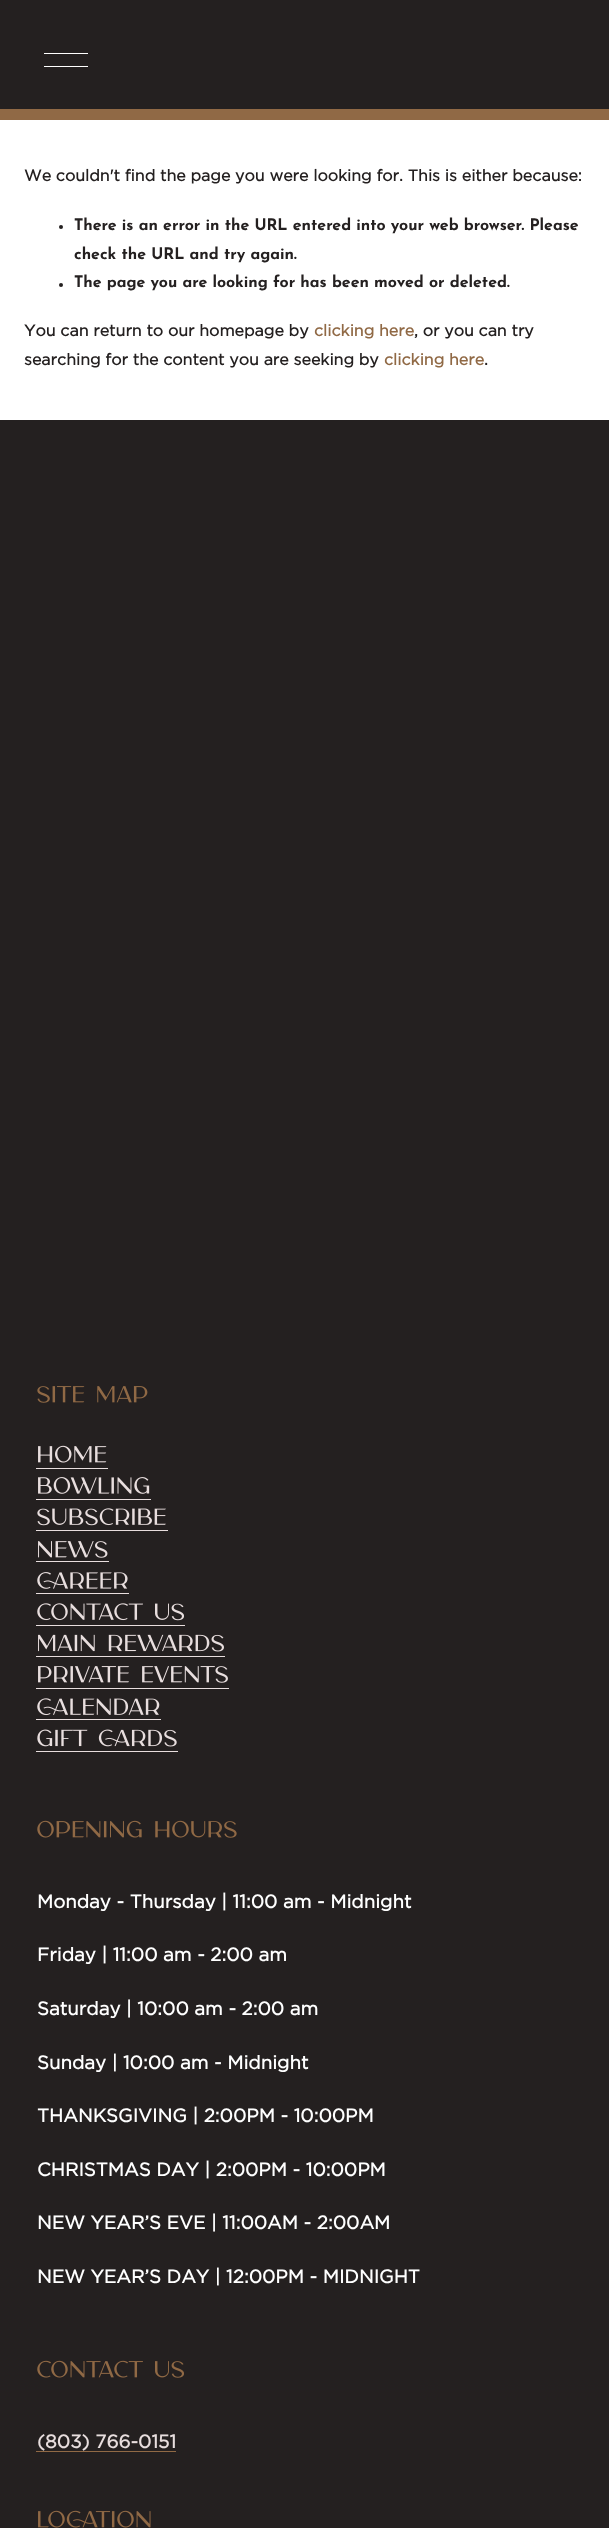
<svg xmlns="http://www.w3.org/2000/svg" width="609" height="2528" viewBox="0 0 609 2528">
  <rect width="100%" height="100%" fill="#ffffff"/>
  <rect x="0" y="0" width="609" height="109" fill="#242020"/>
  <rect x="44" y="53" width="44" height="1" fill="#ffffff"/>
  <rect x="44" y="66" width="44" height="1" fill="#ffffff"/>
  <rect x="0" y="109" width="609" height="11" fill="#906945"/>
  <text x="24" y="181" font-family="Gotham" font-size="15.95" font-weight="bold" fill="#242020">We couldn't find the page you were looking for. This is either because:</text>
  <circle cx="61" cy="227" r="2" fill="#242020"/>
  <text x="74" y="230" font-family="Josefin Sans" font-size="15.95" font-weight="bold" fill="#242020">There is an error in the URL entered into your web browser. Please</text>
  <text x="74" y="259" font-family="Josefin Sans" font-size="15.95" font-weight="bold" fill="#242020">check the URL and try again.</text>
  <circle cx="61" cy="285" r="2" fill="#242020"/>
  <text x="74" y="287" font-family="Josefin Sans" font-size="15.95" font-weight="bold" fill="#242020">The page you are looking for has been moved or deleted.</text>
  <text x="24" y="336" font-family="Gotham" font-size="15.95" font-weight="bold" fill="#242020">You can return to our homepage by</text>
  <text x="314" y="336" font-family="Gotham" font-size="15.95" font-weight="bold" fill="#906945">clicking here</text>
  <text x="414" y="336" font-family="Gotham" font-size="15.95" font-weight="bold" fill="#242020">, or you can try</text>
  <text x="24" y="365" font-family="Gotham" font-size="15.95" font-weight="bold" fill="#242020">searching for the content you are seeking by</text>
  <text x="384" y="365" font-family="Gotham" font-size="15.95" font-weight="bold" fill="#906945">clicking here</text>
  <text x="484" y="365" font-family="Gotham" font-size="15.95" font-weight="bold" fill="#242020">.</text>
  <rect x="0" y="420" width="609" height="2108" fill="#242020"/>
  <image x="37" y="1386" width="111" height="17" href="img1.png"/>
  <image x="38" y="1445" width="69" height="18" href="img2.png"/>
  <rect x="36" y="1468" width="72" height="1" fill="#e8dede"/>
  <image x="38" y="1477" width="112" height="17" href="img3.png"/>
  <rect x="36" y="1499" width="115" height="1" fill="#e8dede"/>
  <image x="37" y="1508" width="129" height="18" href="img4.png"/>
  <rect x="36" y="1530" width="132" height="1" fill="#e8dede"/>
  <image x="38" y="1541" width="70" height="17" href="img5.png"/>
  <rect x="36" y="1561" width="73" height="1" fill="#e8dede"/>
  <image x="37" y="1572" width="91" height="17" href="img6.png"/>
  <rect x="36" y="1593" width="93" height="1" fill="#e8dede"/>
  <image x="37" y="1603" width="147" height="18" href="img7.png"/>
  <rect x="36" y="1625" width="149" height="1" fill="#e8dede"/>
  <image x="38" y="1634" width="186" height="18" href="img8.png"/>
  <rect x="36" y="1656" width="189" height="1" fill="#e8dede"/>
  <image x="38" y="1666" width="190" height="17" href="img9.png"/>
  <rect x="36" y="1688" width="193" height="1" fill="#e8dede"/>
  <image x="37" y="1698" width="123" height="18" href="img10.png"/>
  <rect x="36" y="1719" width="125" height="1" fill="#e8dede"/>
  <image x="37" y="1729" width="140" height="18" href="img11.png"/>
  <rect x="36" y="1751" width="142" height="1" fill="#e8dede"/>
  <image x="37" y="1820" width="200" height="18" href="img12.png"/>
  <text x="37" y="1908" font-family="Gotham" font-size="18.65" font-weight="bold" fill="#ffffff">Monday - Thursday | 11:00 am - Midnight</text>
  <text x="37" y="1961" font-family="Gotham" font-size="18.65" font-weight="bold" fill="#ffffff">Friday | 11:00 am - 2:00 am</text>
  <text x="37" y="2015" font-family="Gotham" font-size="18.65" font-weight="bold" fill="#ffffff">Saturday | 10:00 am - 2:00 am</text>
  <text x="37" y="2069" font-family="Gotham" font-size="18.65" font-weight="bold" fill="#ffffff">Sunday | 10:00 am - Midnight</text>
  <text x="37" y="2122" font-family="Gotham" font-size="18.65" font-weight="bold" fill="#ffffff">THANKSGIVING | 2:00PM - 10:00PM</text>
  <text x="37" y="2176" font-family="Gotham" font-size="18.65" font-weight="bold" fill="#ffffff">CHRISTMAS DAY | 2:00PM - 10:00PM</text>
  <text x="37" y="2229" font-family="Gotham" font-size="18.65" font-weight="bold" fill="#ffffff">NEW YEAR’S EVE | 11:00AM - 2:00AM</text>
  <text x="37" y="2283" font-family="Gotham" font-size="18.65" font-weight="bold" fill="#ffffff">NEW YEAR’S DAY | 12:00PM - MIDNIGHT</text>
  <image x="37" y="2360" width="147" height="18" href="img13.png"/>
  <text x="37" y="2448" font-family="Gotham" font-size="18.65" font-weight="bold" fill="#e8dede">(803) 766-0151</text>
  <rect x="36" y="2451" width="140" height="1" fill="#906945"/>
  <image x="38" y="2510" width="113" height="18" href="img14.png"/>
</svg>
